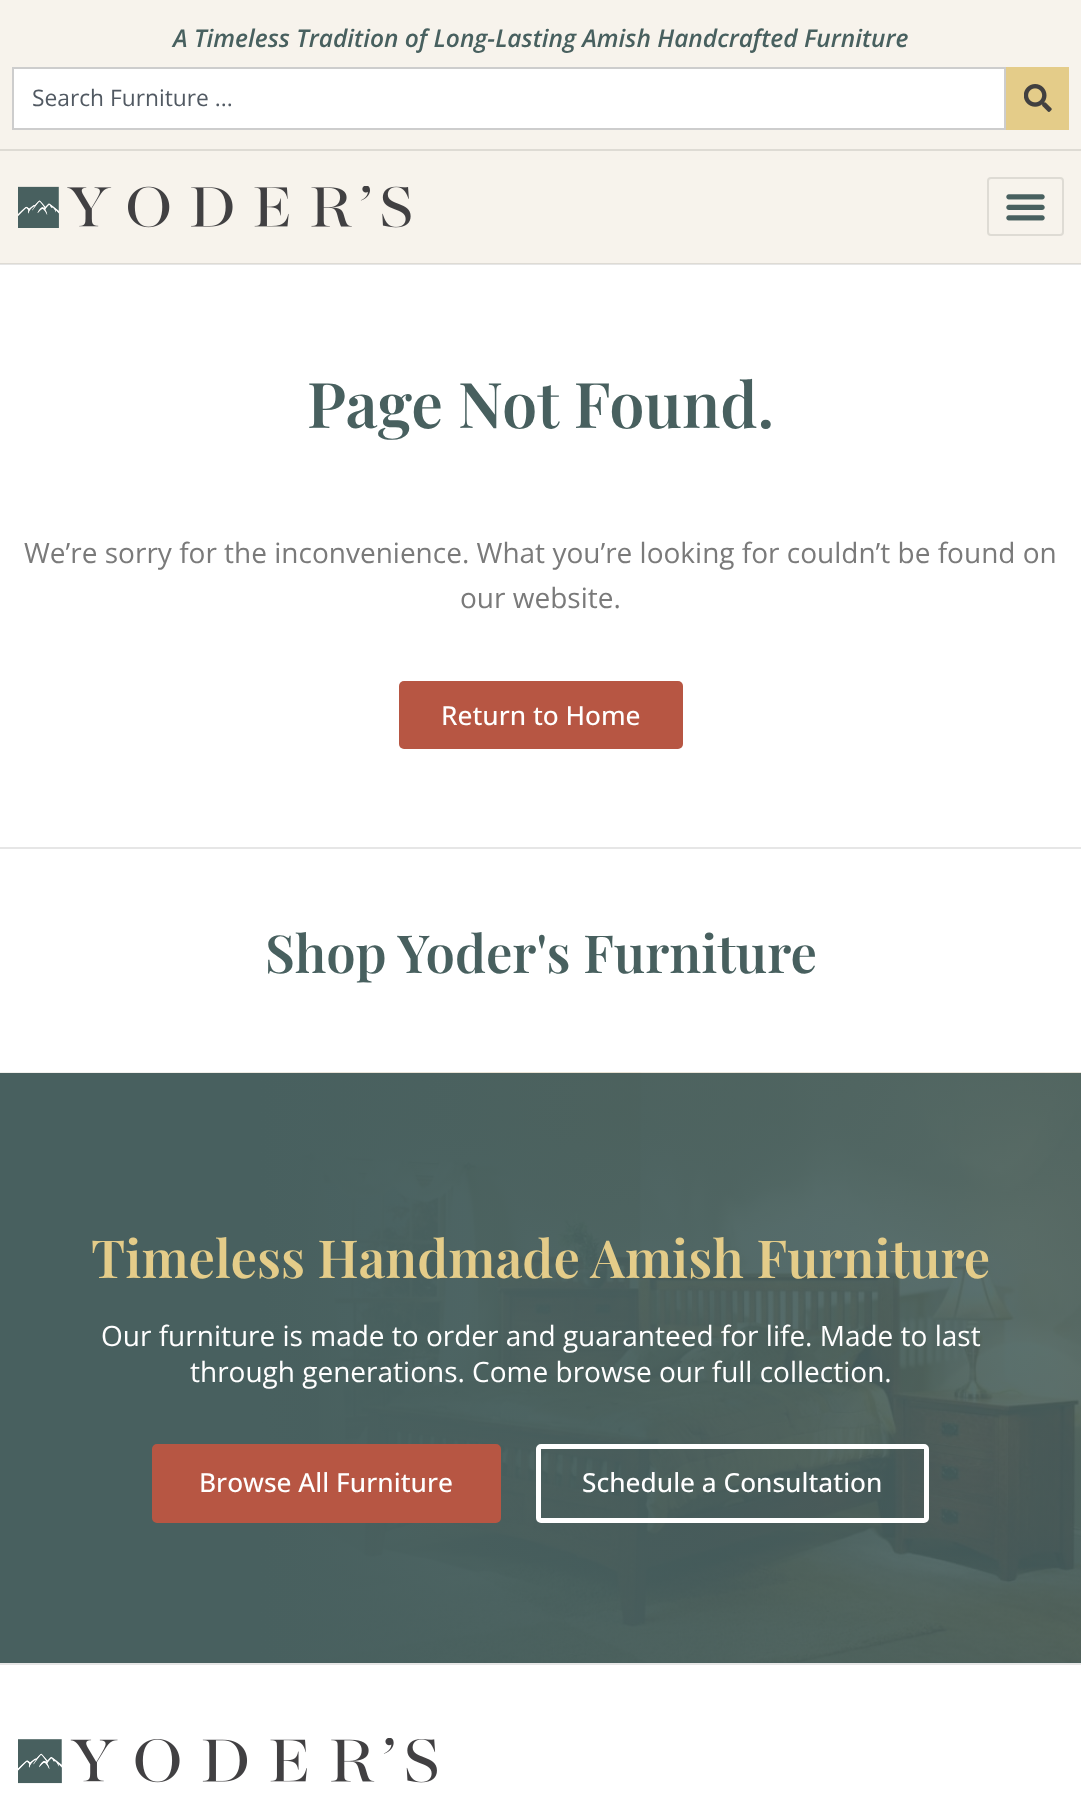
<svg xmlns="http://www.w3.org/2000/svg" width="1081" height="1818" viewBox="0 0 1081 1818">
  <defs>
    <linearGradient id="g1" gradientUnits="userSpaceOnUse" x1="0" y1="1368" x2="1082" y2="1368"><stop offset="0.24" stop-color="#48605f"/><stop offset="1" stop-color="#48605f" stop-opacity="0.89"/></linearGradient>
  </defs>
  <rect width="100%" height="100%" fill="#ffffff"/>
  <rect x="0" y="264" width="1081" height="1" fill="#e6e6e6"/>
  <rect x="0" y="0" width="1081" height="149" fill="#f7f3ec"/>
  <rect x="0" y="149" width="1081" height="2" fill="#dedbd4"/>
  <text x="173" y="47" font-family="Open Sans" font-size="24.5" font-weight="600" font-style="italic" fill="#48605f">A Timeless Tradition of Long-Lasting Amish Handcrafted Furniture</text>
  <rect x="13" y="68" width="992" height="61" fill="#ffffff" stroke="#cdcdcd" stroke-width="2"/>
  <text x="32" y="106" font-family="Open Sans" font-size="22.75" fill="#515962">Search Furniture ...</text>
  <rect x="1006" y="67" width="63" height="63" fill="#e4cc89"/>
  <image x="1024" y="84" width="28" height="28" href="img1.png"/>
  <rect x="0" y="151" width="1081" height="112" fill="#f7f3ec"/>
  <rect x="0" y="263" width="1081" height="1" fill="#dedbd4"/>
  <image x="18" y="186" width="393" height="42" href="img2.png"/>
  <rect x="988" y="178" width="75" height="57" rx="3" fill="none" stroke="#dedbd4" stroke-width="2"/>
  <image x="1006" y="194" width="39" height="27" href="img3.png"/>
  <rect x="0" y="847" width="1081" height="2" fill="#e6e6e6"/>
  <text x="307" y="428" font-family="Playfair Display" font-size="63" font-weight="600" fill="#48605f">Page Not Found.</text>
  <text x="24" y="563" font-family="Open Sans" font-size="28" fill="#7a7a7a">We’re sorry for the inconvenience. What you’re looking for couldn’t be found on</text>
  <text x="460" y="608" font-family="Open Sans" font-size="28" fill="#7a7a7a">our website.</text>
  <rect x="399" y="681" width="284" height="68" rx="5" fill="#b75643"/>
  <text x="441" y="725" font-family="Open Sans" font-size="26.25" font-weight="500" fill="#ffffff">Return to Home</text>
  <text x="265" y="973" font-family="Playfair Display" font-size="52.5" font-weight="600" fill="#48605f">Shop Yoder's Furniture</text>
  <rect x="304" y="1662" width="777" height="1" fill="#48605f"/>
  <image x="0" y="1072" width="1081" height="591" href="img4.png"/>
  <rect x="0" y="1073" width="1081" height="590" fill="url(#g1)"/>
  <text x="91" y="1278" font-family="Playfair Display" font-size="52.5" font-weight="600" fill="#e4cc89">Timeless Handmade Amish Furniture</text>
  <text x="101" y="1346" font-family="Open Sans" font-size="28" fill="#ffffff">Our furniture is made to order and guaranteed for life. Made to last</text>
  <text x="190" y="1382" font-family="Open Sans" font-size="28" fill="#ffffff">through generations. Come browse our full collection.</text>
  <rect x="154.5" y="1446.5" width="344" height="74" rx="2.5" fill="#b75643" stroke="#b75643" stroke-width="5"/>
  <text x="199" y="1492" font-family="Open Sans" font-size="26.25" font-weight="500" fill="#ffffff">Browse All Furniture</text>
  <rect x="538.5" y="1446.5" width="388" height="74" rx="2.5" fill="none" stroke="#ffffff" stroke-width="5"/>
  <text x="582" y="1492" font-family="Open Sans" font-size="26.25" font-weight="500" fill="#ffffff">Schedule a Consultation</text>
  <rect x="0" y="1663" width="1081" height="2" fill="#e6e6e6"/>
  <image x="18" y="1738" width="419" height="46" href="img5.png"/>
</svg>
